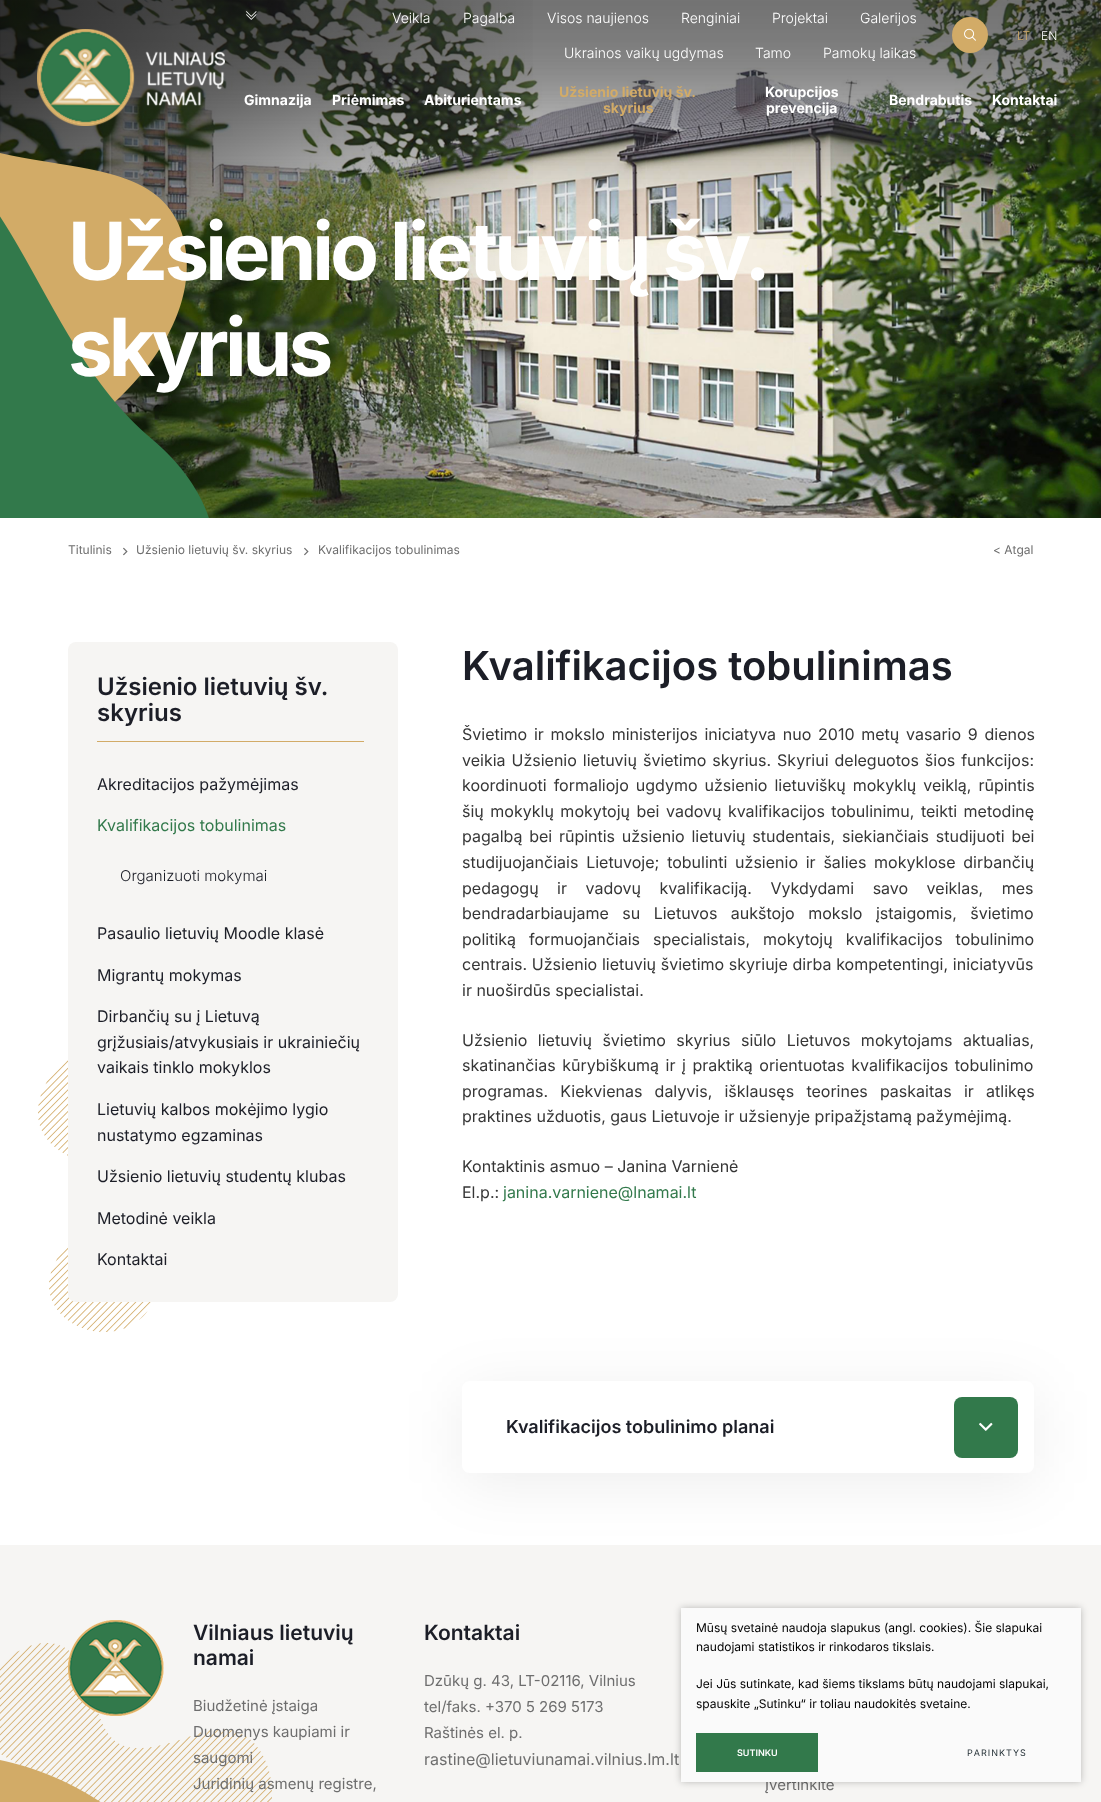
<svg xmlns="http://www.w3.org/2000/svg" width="1101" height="1802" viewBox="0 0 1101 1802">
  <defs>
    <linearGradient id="g1" gradientUnits="userSpaceOnUse" x1="-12" y1="230" x2="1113" y2="288"><stop offset="0" stop-color="#000000" stop-opacity="0.6"/><stop offset="0.49" stop-color="#000000" stop-opacity="0"/></linearGradient>
    <clipPath id="clip1"><path d="M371 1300H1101V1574H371ZM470 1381H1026C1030.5 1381 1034 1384.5 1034 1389V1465C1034 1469.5 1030.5 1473 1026 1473H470C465.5 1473 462 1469.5 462 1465V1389C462 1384.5 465.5 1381 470 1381Z" clip-rule="evenodd"/></clipPath>
    <filter id="blur1" x="-50%" y="-200%" width="200%" height="500%"><feGaussianBlur stdDeviation="30"/></filter>
    <filter id="blur2" x="-50%" y="-200%" width="200%" height="500%"><feGaussianBlur stdDeviation="3.5"/></filter>
  </defs>
  <rect width="100%" height="100%" fill="#ffffff"/>
  <image x="0" y="0" width="1101" height="518" href="img4.png"/>
  <image x="0" y="0" width="1101" height="239" href="img5.png"/>
  <rect x="0" y="0" width="533" height="518" fill="url(#g1)"/>
  <image x="37" y="29" width="188" height="97" href="img1.png"/>
  <image x="246" y="11" width="11" height="9" href="img2.png"/>
  <text x="392" y="23" font-family="Inter" font-size="14" font-weight="300" fill="#ffffff">Veikla</text>
  <text x="463" y="23" font-family="Inter" font-size="14" font-weight="300" fill="#ffffff">Pagalba</text>
  <text x="547" y="23" font-family="Inter" font-size="14" font-weight="300" fill="#ffffff">Visos naujienos</text>
  <text x="681" y="23" font-family="Inter" font-size="14" font-weight="300" fill="#ffffff">Renginiai</text>
  <text x="772" y="23" font-family="Inter" font-size="14" font-weight="300" fill="#ffffff">Projektai</text>
  <text x="860" y="23" font-family="Inter" font-size="14" font-weight="300" fill="#ffffff">Galerijos</text>
  <text x="564" y="58" font-family="Inter" font-size="14" font-weight="300" fill="#ffffff">Ukrainos vaikų ugdymas</text>
  <text x="755" y="58" font-family="Inter" font-size="14" font-weight="300" fill="#ffffff">Tamo</text>
  <text x="823" y="58" font-family="Inter" font-size="14" font-weight="300" fill="#ffffff">Pamokų laikas</text>
  <circle cx="970" cy="35" r="18" fill="#d2ab67"/>
  <image x="964" y="28" width="12" height="13" href="img3.png"/>
  <text x="1017" y="40" font-family="Inter" font-size="12" font-weight="300" fill="#d2ab67">LT</text>
  <text x="1041" y="40" font-family="Inter" font-size="12" font-weight="300" fill="#ffffff">EN</text>
  <text x="244" y="105" font-family="Inter" font-size="14" font-weight="bold" fill="#ffffff">Gimnazija</text>
  <text x="332" y="105" font-family="Inter" font-size="14" font-weight="bold" fill="#ffffff">Priėmimas</text>
  <text x="424" y="105" font-family="Inter" font-size="14" font-weight="bold" fill="#ffffff">Abiturientams</text>
  <text x="559" y="97" font-family="Inter" font-size="14" font-weight="bold" fill="#d2ab67">Užsienio lietuvių šv.</text>
  <text x="603" y="113" font-family="Inter" font-size="14" font-weight="bold" fill="#d2ab67">skyrius</text>
  <text x="765" y="97" font-family="Inter" font-size="14" font-weight="bold" fill="#ffffff">Korupcijos</text>
  <text x="766" y="113" font-family="Inter" font-size="14" font-weight="bold" fill="#ffffff">prevencija</text>
  <text x="889" y="105" font-family="Inter" font-size="14" font-weight="bold" fill="#ffffff">Bendrabutis</text>
  <text x="992" y="105" font-family="Inter" font-size="14" font-weight="bold" fill="#ffffff">Kontaktai</text>
  <image x="0" y="153" width="209" height="365" href="img6.png"/>
  <text x="68" y="280" font-family="Inter" font-size="80" font-weight="bold" letter-spacing="-4" fill="#ffffff">Užsienio lietuvių šv.</text>
  <text x="68" y="376" font-family="Inter" font-size="80" font-weight="bold" letter-spacing="-4" fill="#ffffff">skyrius</text>
  <text x="68" y="554" font-family="Inter" font-size="12" fill="#6e6e6e">Titulinis</text>
  <image x="123" y="547" width="5" height="9" href="img7.png"/>
  <text x="136" y="554" font-family="Inter" font-size="12" fill="#6e6e6e">Užsienio lietuvių šv. skyrius</text>
  <image x="304" y="547" width="5" height="9" href="img7.png"/>
  <text x="318" y="554" font-family="Inter" font-size="12" fill="#6e6e6e">Kvalifikacijos tobulinimas</text>
  <text x="993" y="554" font-family="Inter" font-size="12" fill="#6e6e6e">&lt; Atgal</text>
  <image x="38" y="1060" width="113" height="272" href="img8.png"/>
  <g clip-path="url(#clip1)">
    <rect x="462" y="1391" width="572" height="92" rx="8" fill="#000000" fill-opacity="0.07" filter="url(#blur1)"/>
  </g>
  <rect x="68" y="642" width="330" height="660" rx="8" fill="#f6f5f3"/>
  <rect x="97" y="741" width="267" height="1" fill="#d2ab67"/>
  <text x="97" y="695" font-family="Inter" font-size="24" font-weight="600" fill="#1c1e27">Užsienio lietuvių šv.</text>
  <text x="97" y="721" font-family="Inter" font-size="24" font-weight="600" fill="#1c1e27">skyrius</text>
  <text x="97" y="790" font-family="Inter" font-size="16" fill="#1c1e27">Akreditacijos pažymėjimas</text>
  <text x="97" y="831" font-family="Inter" font-size="16" fill="#32794b">Kvalifikacijos tobulinimas</text>
  <text x="120" y="881" font-family="Inter" font-size="15" font-weight="300" fill="#1c1e27">Organizuoti mokymai</text>
  <text x="97" y="939" font-family="Inter" font-size="16" fill="#1c1e27">Pasaulio lietuvių Moodle klasė</text>
  <text x="97" y="981" font-family="Inter" font-size="16" fill="#1c1e27">Migrantų mokymas</text>
  <text x="97" y="1022" font-family="Inter" font-size="16" fill="#1c1e27">Dirbančių su į Lietuvą</text>
  <text x="97" y="1048" font-family="Inter" font-size="16" fill="#1c1e27">grįžusiais/atvykusiais ir ukrainiečių</text>
  <text x="97" y="1073" font-family="Inter" font-size="16" fill="#1c1e27">vaikais tinklo mokyklos</text>
  <text x="97" y="1115" font-family="Inter" font-size="16" fill="#1c1e27">Lietuvių kalbos mokėjimo lygio</text>
  <text x="97" y="1141" font-family="Inter" font-size="16" fill="#1c1e27">nustatymo egzaminas</text>
  <text x="97" y="1182" font-family="Inter" font-size="16" fill="#1c1e27">Užsienio lietuvių studentų klubas</text>
  <text x="97" y="1224" font-family="Inter" font-size="16" fill="#1c1e27">Metodinė veikla</text>
  <text x="97" y="1265" font-family="Inter" font-size="16" fill="#1c1e27">Kontaktai</text>
  <text x="462" y="680" font-family="Inter" font-size="40" font-weight="600" fill="#1c1e27">Kvalifikacijos tobulinimas</text>
  <text x="462" y="740" word-spacing="2.25" font-family="Inter" font-size="16" fill="#363636">Švietimo ir mokslo ministerijos iniciatyva nuo 2010 metų vasario 9 dienos</text>
  <text x="462" y="766" word-spacing="1.5" font-family="Inter" font-size="16" fill="#363636">veikia Užsienio lietuvių švietimo skyrius. Skyriui deleguotos šios funkcijos:</text>
  <text x="462" y="791" word-spacing="2.5" font-family="Inter" font-size="16" fill="#363636">koordinuoti formaliojo ugdymo užsienio lietuviškų mokyklų veiklą, rūpintis</text>
  <text x="462" y="817" word-spacing="2" font-family="Inter" font-size="16" fill="#363636">šių mokyklų mokytojų bei vadovų kvalifikacijos tobulinimu, teikti metodinę</text>
  <text x="462" y="842" word-spacing="2.25" font-family="Inter" font-size="16" fill="#363636">pagalbą bei rūpintis užsienio lietuvių studentais, siekiančiais studijuoti bei</text>
  <text x="462" y="868" word-spacing="3.25" font-family="Inter" font-size="16" fill="#363636">studijuojančiais Lietuvoje; tobulinti užsienio ir šalies mokyklose dirbančių</text>
  <text x="462" y="894" word-spacing="14" font-family="Inter" font-size="16" fill="#363636">pedagogų ir vadovų kvalifikaciją. Vykdydami savo veiklas, mes</text>
  <text x="462" y="919" word-spacing="9" font-family="Inter" font-size="16" fill="#363636">bendradarbiaujame su Lietuvos aukštojo mokslo įstaigomis, švietimo</text>
  <text x="462" y="945" word-spacing="8.5" font-family="Inter" font-size="16" fill="#363636">politiką formuojančiais specialistais, mokytojų kvalifikacijos tobulinimo</text>
  <text x="462" y="970" word-spacing="0.25" font-family="Inter" font-size="16" fill="#363636">centrais. Užsienio lietuvių švietimo skyriuje dirba kompetentingi, iniciatyvūs</text>
  <text x="462" y="996" font-family="Inter" font-size="16" fill="#363636">ir nuoširdūs specialistai.</text>
  <text x="462" y="1046" word-spacing="6" font-family="Inter" font-size="16" fill="#363636">Užsienio lietuvių švietimo skyrius siūlo Lietuvos mokytojams aktualias,</text>
  <text x="462" y="1071" word-spacing="2" font-family="Inter" font-size="16" fill="#363636">skatinančias kūrybiškumą ir į praktiką orientuotas kvalifikacijos tobulinimo</text>
  <text x="462" y="1097" word-spacing="7.75" font-family="Inter" font-size="16" fill="#363636">programas. Kiekvienas dalyvis, išklausęs teorines paskaitas ir atlikęs</text>
  <text x="462" y="1122" font-family="Inter" font-size="16" fill="#363636">praktines užduotis, gaus Lietuvoje ir užsienyje pripažįstamą pažymėjimą.</text>
  <text x="462" y="1172" font-family="Inter" font-size="16" fill="#363636">Kontaktinis asmuo – Janina Varnienė</text>
  <text x="462" y="1198" font-family="Inter" font-size="16" fill="#363636">El.p.:</text>
  <text x="503" y="1198" font-family="Inter" font-size="16" fill="#32794b">janina.varniene@lnamai.lt</text>
  <text x="506" y="1433" font-family="Inter" font-size="18" font-weight="600" fill="#1c1e27">Kvalifikacijos tobulinimo planai</text>
  <rect x="954" y="1397" width="64" height="61" rx="8" fill="#32794b"/>
  <image x="979" y="1422" width="14" height="9" href="img9.png"/>
  <rect x="0" y="1545" width="1101" height="257" fill="#f6f5f3"/>
  <image x="0" y="1643" width="272" height="159" href="img10.png"/>
  <image x="68" y="1620" width="96" height="96" href="img11.png"/>
  <text x="193" y="1640" font-family="Inter" font-size="21" font-weight="600" fill="#1c1e27">Vilniaus lietuvių</text>
  <text x="193" y="1665" font-family="Inter" font-size="21" font-weight="600" fill="#1c1e27">namai</text>
  <text x="193" y="1711" font-family="Inter" font-size="15" fill="#6e6e6e">Biudžetinė įstaiga</text>
  <text x="193" y="1737" font-family="Inter" font-size="15" fill="#6e6e6e">Duomenys kaupiami ir</text>
  <text x="193" y="1763" font-family="Inter" font-size="15" fill="#6e6e6e">saugomi</text>
  <text x="193" y="1789" font-family="Inter" font-size="15" fill="#6e6e6e">Juridinių asmenų registre,</text>
  <text x="424" y="1640" font-family="Inter" font-size="21" font-weight="600" fill="#1c1e27">Kontaktai</text>
  <text x="424" y="1686" font-family="Inter" font-size="15" fill="#6e6e6e">Dzūkų g. 43, LT-02116, Vilnius</text>
  <text x="424" y="1712" font-family="Inter" font-size="15" fill="#6e6e6e">tel/faks. +370 5 269 5173</text>
  <text x="424" y="1738" font-family="Inter" font-size="15" fill="#6e6e6e">Raštinės el. p.</text>
  <text x="424" y="1765" font-family="Inter" font-size="16" fill="#6e6e6e">rastine@lietuviunamai.vilnius.lm.lt</text>
  <text x="765" y="1790" font-family="Inter" font-size="15" fill="#6e6e6e">Įvertinkite</text>
  <rect x="681" y="1608" width="400" height="174" fill="#000000" fill-opacity="0.25" filter="url(#blur2)"/>
  <rect x="681" y="1608" width="400" height="174" fill="#fafafa"/>
  <text x="696" y="1632" font-family="Inter" font-size="12" fill="#000000">Mūsų svetainė naudoja slapukus (angl. cookies). Šie slapukai</text>
  <text x="696" y="1651" font-family="Inter" font-size="12" fill="#000000">naudojami statistikos ir rinkodaros tikslais.</text>
  <text x="696" y="1688" font-family="Inter" font-size="12" fill="#000000">Jei Jūs sutinkate, kad šiems tikslams būtų naudojami slapukai,</text>
  <text x="696" y="1708" font-family="Inter" font-size="12" fill="#000000">spauskite „Sutinku“ ir toliau naudokitės svetaine.</text>
  <rect x="696" y="1733" width="122" height="39" fill="#32794b"/>
  <text x="737" y="1756" font-family="Inter" font-size="9" font-weight="600" fill="#ffffff">SUTINKU</text>
  <text x="967" y="1756" font-family="Inter" font-size="9" letter-spacing="1" fill="#263238">PARINKTYS</text>
</svg>
